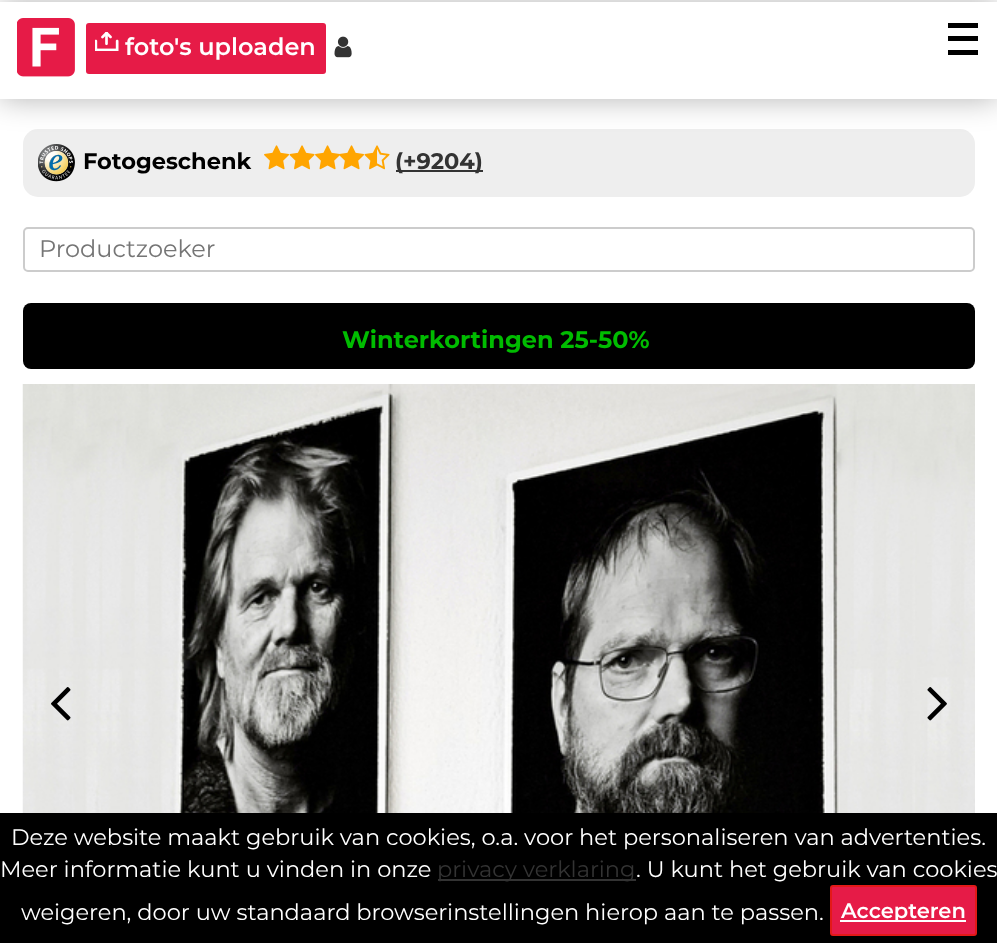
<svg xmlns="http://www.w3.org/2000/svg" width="997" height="943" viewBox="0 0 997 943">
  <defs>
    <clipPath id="clip1"><path d="M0 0H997V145H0ZM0 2H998V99H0Z" clip-rule="evenodd"/></clipPath>
    <filter id="blur1" x="-50%" y="-200%" width="200%" height="500%"><feGaussianBlur stdDeviation="15"/></filter>
  </defs>
  <rect width="100%" height="100%" fill="#ffffff"/>
  <rect x="23" y="129" width="952" height="68" rx="15" fill="#eeeeee"/>
  <image x="38" y="144" width="37" height="38" href="img4.png"/>
  <g clip-path="url(#clip1)">
    <rect x="0" y="2" width="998" height="97" fill="#000000" fill-opacity="0.3" filter="url(#blur1)"/>
  </g>
  <image x="17" y="18" width="58" height="59" href="img1.png"/>
  <rect x="86" y="23" width="240" height="51" rx="3" fill="#e61b47"/>
  <image x="95" y="32" width="24" height="19" href="img2.png"/>
  <text x="125" y="55" font-family="Montserrat" font-size="24" font-weight="600" fill="#ffffff">foto's uploaden</text>
  <image x="334" y="36" width="18" height="22" href="img3.png"/>
  <rect x="948" y="23" width="30" height="5" fill="#000000"/>
  <rect x="948" y="36" width="30" height="5" fill="#000000"/>
  <rect x="948" y="50" width="30" height="5" fill="#000000"/>
  <text x="83" y="169" font-family="Montserrat" font-size="22.5" font-weight="bold" fill="#000000">Fotogeschenk</text>
  <image x="264" y="145" width="25" height="25" href="img5.png"/>
  <image x="289" y="145" width="26" height="25" href="img6.png"/>
  <image x="315" y="145" width="25" height="25" href="img5.png"/>
  <image x="339" y="145" width="25" height="25" href="img7.png"/>
  <image x="364" y="145" width="26" height="25" href="img8.png"/>
  <rect x="396" y="170" width="87" height="2" fill="#333333"/>
  <text x="395" y="169" font-family="Montserrat" font-size="22.5" font-weight="bold" fill="#333333">(+9204)</text>
  <rect x="24" y="228" width="950" height="43" rx="4" fill="none" stroke="#cccccc" stroke-width="2"/>
  <text x="39" y="257" font-family="Montserrat" font-size="24" fill="#757575">Productzoeker</text>
  <rect x="23" y="303" width="952" height="66" rx="8" fill="#000000"/>
  <text x="342" y="348" font-family="Montserrat" font-size="24" font-weight="bold" fill="#00bc00">Winterkortingen 25-50%</text>
  <image x="22" y="384" width="953" height="429" href="img9.png"/>
  <image x="51" y="687" width="20" height="34" href="img10.png"/>
  <image x="927" y="687" width="20" height="34" href="img11.png"/>
  <rect x="0" y="813" width="997" height="130" fill="#000000"/>
  <text x="11" y="845" font-family="Montserrat" font-size="22.5" fill="#ffffff">Deze website maakt gebruik van cookies, o.a. voor het personaliseren van advertenties.</text>
  <text x="0" y="877" font-family="Montserrat" font-size="22.5" fill="#ffffff">Meer informatie kunt u vinden in onze</text>
  <rect x="438" y="879" width="198" height="2" fill="#333333"/>
  <text x="437" y="877" font-family="Montserrat" font-size="22.5" fill="#333333">privacy verklaring</text>
  <text x="636" y="877" font-family="Montserrat" font-size="22.5" fill="#ffffff">. U kunt het gebruik van cookies</text>
  <text x="21" y="920" font-family="Montserrat" font-size="22.5" fill="#ffffff">weigeren, door uw standaard browserinstellingen hierop aan te passen.</text>
  <rect x="831" y="886" width="145" height="49" rx="2" fill="#e61b47" stroke="#e31918" stroke-width="2"/>
  <rect x="840" y="920" width="126" height="2" fill="#ffffff"/>
  <text x="841" y="918" font-family="Montserrat" font-size="21" font-weight="600" fill="#ffffff">Accepteren</text>
</svg>
